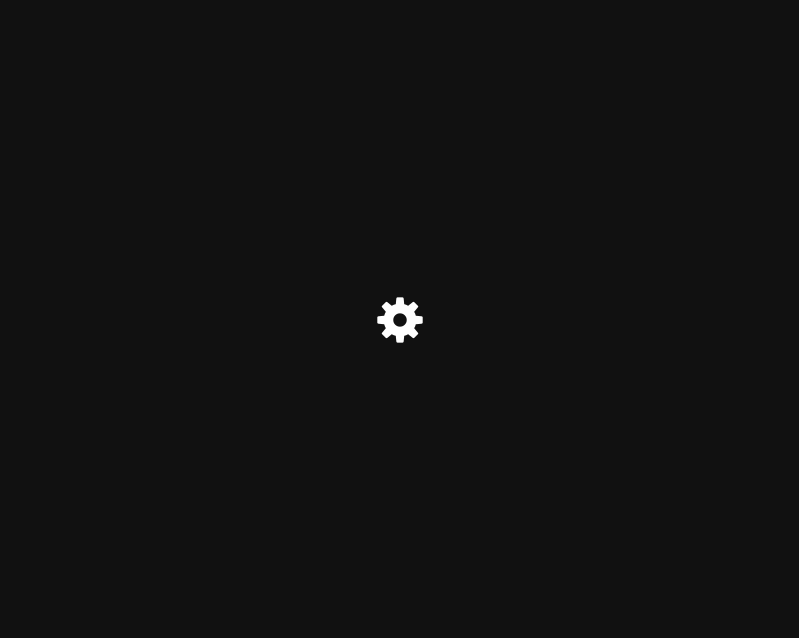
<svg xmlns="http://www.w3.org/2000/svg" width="799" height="638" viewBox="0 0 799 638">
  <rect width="100%" height="100%" fill="#111111"/>
  <image x="377" y="297" width="46" height="46" href="img1.png"/>
</svg>
